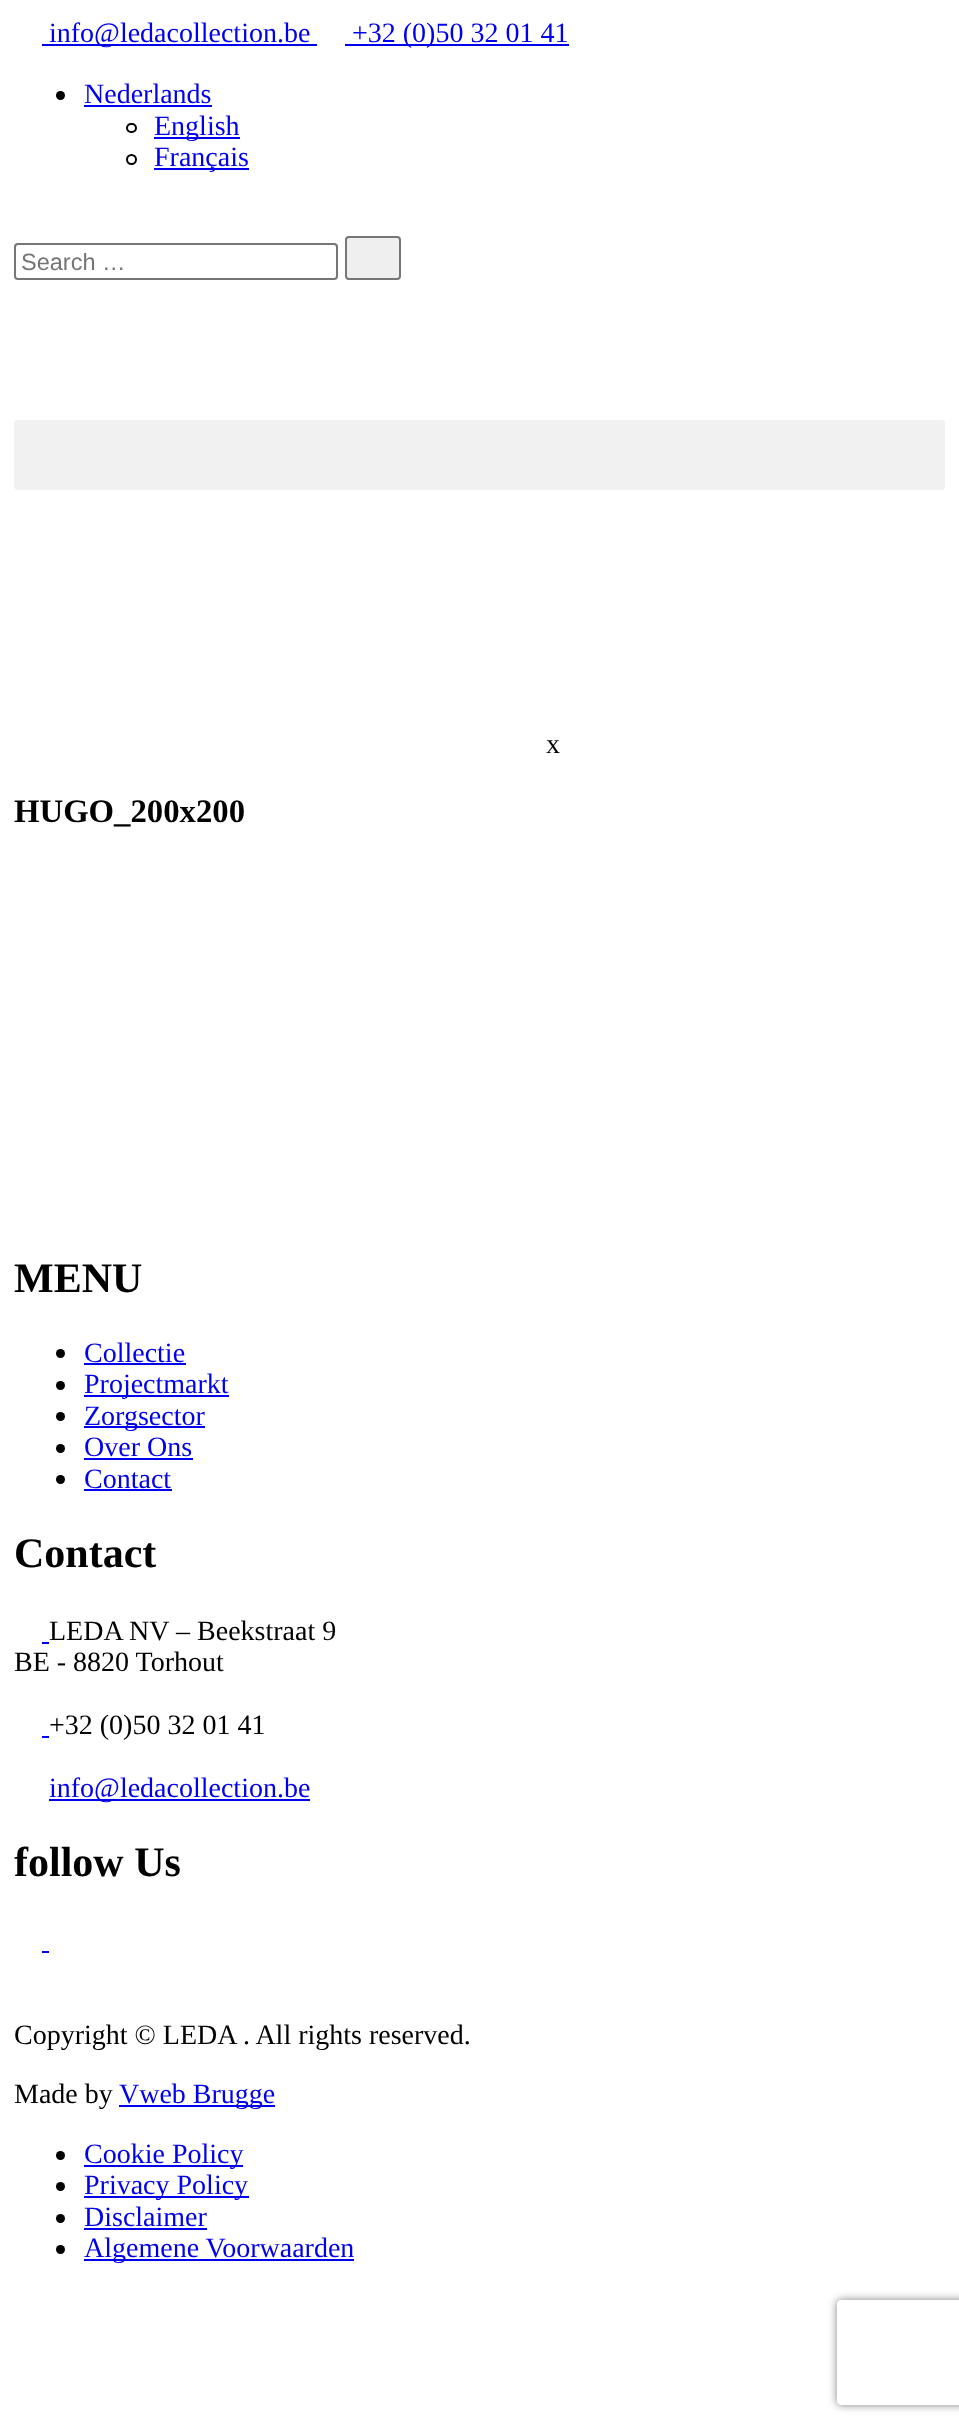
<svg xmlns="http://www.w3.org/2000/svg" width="959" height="2428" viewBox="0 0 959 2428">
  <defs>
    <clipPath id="clip1"><path d="M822 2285H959V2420H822ZM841 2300H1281C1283 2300 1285 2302 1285 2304V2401C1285 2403 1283 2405 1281 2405H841C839 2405 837 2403 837 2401V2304C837 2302 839 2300 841 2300Z" clip-rule="evenodd"/></clipPath>
    <filter id="blur1" x="-50%" y="-200%" width="200%" height="500%"><feGaussianBlur stdDeviation="4.5"/></filter>
  </defs>
  <rect width="100%" height="100%" fill="#ffffff"/>
  <rect x="42" y="44" width="275" height="2" fill="#0000ee"/>
  <text x="49" y="42" font-family="Liberation Serif" font-size="28" fill="#0000ee">info@ledacollection.be</text>
  <rect x="345" y="44" width="224" height="2" fill="#0000ee"/>
  <text x="352" y="42" font-family="Liberation Serif" font-size="28" fill="#0000ee">+32 (0)50 32 01 41</text>
  <circle cx="60.5" cy="95.5" r="4.5" fill="#000000"/>
  <text x="84" y="103" font-family="Liberation Serif" font-size="28" fill="#0000ee">Nederlands</text>
  <rect x="84" y="105" width="128" height="2" fill="#0000ee"/>
  <rect x="127" y="124" width="9" height="8" rx="4" fill="none" stroke="#000000" stroke-width="2"/>
  <rect x="154" y="137" width="86" height="2" fill="#0000ee"/>
  <text x="154" y="135" font-family="Liberation Serif" font-size="28" fill="#0000ee">English</text>
  <circle cx="131.5" cy="159.5" r="4.5" fill="none" stroke="#000000" stroke-width="2"/>
  <rect x="154" y="168" width="95" height="2" fill="#0000ee"/>
  <text x="154" y="166" font-family="Liberation Serif" font-size="28" fill="#0000ee">Français</text>
  <rect x="15" y="244" width="322" height="35" rx="3" fill="none" stroke="#767676" stroke-width="2"/>
  <text x="21" y="270" font-family="Liberation Sans" font-size="23.5" fill="#757575">Search …</text>
  <rect x="346" y="237" width="54" height="42" rx="3" fill="#efefef" stroke="#767676" stroke-width="2"/>
  <rect x="14" y="420" width="931" height="70" rx="4" fill="#f1f1f1"/>
  <text x="546" y="753" font-family="Liberation Serif" font-size="28" fill="#000000">x</text>
  <text x="14" y="822" font-family="Liberation Serif" font-size="32.75" font-weight="bold" fill="#000000">HUGO_200x200</text>
  <text x="14" y="1292" font-family="Liberation Serif" font-size="42" font-weight="bold" fill="#000000">MENU</text>
  <circle cx="60.5" cy="1353.5" r="4.5" fill="#000000"/>
  <text x="84" y="1362" font-family="Liberation Serif" font-size="28" fill="#0000ee">Collectie</text>
  <rect x="84" y="1363" width="102" height="2" fill="#0000ee"/>
  <circle cx="60.5" cy="1385.5" r="4.5" fill="#000000"/>
  <rect x="84" y="1395" width="145" height="2" fill="#0000ee"/>
  <text x="84" y="1393" font-family="Liberation Serif" font-size="28" fill="#0000ee">Projectmarkt</text>
  <circle cx="60.5" cy="1416.5" r="4.5" fill="#000000"/>
  <rect x="84" y="1426" width="121" height="2" fill="#0000ee"/>
  <text x="84" y="1425" font-family="Liberation Serif" font-size="28" fill="#0000ee">Zorgsector</text>
  <circle cx="60.5" cy="1448.5" r="4.5" fill="#000000"/>
  <text x="84" y="1456" font-family="Liberation Serif" font-size="28" fill="#0000ee">Over Ons</text>
  <rect x="84" y="1458" width="109" height="2" fill="#0000ee"/>
  <circle cx="60.5" cy="1479.5" r="4.5" fill="#000000"/>
  <text x="84" y="1488" font-family="Liberation Serif" font-size="28" fill="#0000ee">Contact</text>
  <rect x="84" y="1489" width="88" height="2" fill="#0000ee"/>
  <text x="14" y="1567" font-family="Liberation Serif" font-size="42" font-weight="bold" fill="#000000">Contact</text>
  <text x="49" y="1640" font-family="Liberation Serif" font-size="28" fill="#000000">LEDA NV – Beekstraat 9</text>
  <rect x="42" y="1642" width="7" height="2" fill="#0000ee"/>
  <text x="14" y="1671" font-family="Liberation Serif" font-size="28" fill="#000000">BE - 8820 Torhout</text>
  <rect x="42" y="1736" width="7" height="2" fill="#0000ee"/>
  <text x="49" y="1734" font-family="Liberation Serif" font-size="28" fill="#000000">+32 (0)50 32 01 41</text>
  <rect x="49" y="1799" width="261" height="2" fill="#0000ee"/>
  <text x="49" y="1797" font-family="Liberation Serif" font-size="28" fill="#0000ee">info@ledacollection.be</text>
  <text x="14" y="1876" font-family="Liberation Serif" font-size="42" font-weight="bold" fill="#000000">follow Us</text>
  <rect x="42" y="1951" width="7" height="2" fill="#0000ee"/>
  <text x="14" y="2044" font-family="Liberation Serif" font-size="28" fill="#000000">Copyright © LEDA . All rights reserved.</text>
  <text x="14" y="2103" font-family="Liberation Serif" font-size="28" fill="#000000">Made by</text>
  <rect x="119" y="2105" width="156" height="2" fill="#0000ee"/>
  <text x="119" y="2103" font-family="Liberation Serif" font-size="28" fill="#0000ee">Vweb Brugge</text>
  <circle cx="60.5" cy="2155.5" r="4.5" fill="#000000"/>
  <rect x="84" y="2165" width="159" height="2" fill="#0000ee"/>
  <text x="84" y="2163" font-family="Liberation Serif" font-size="28" fill="#0000ee">Cookie Policy</text>
  <circle cx="60.5" cy="2186.5" r="4.5" fill="#000000"/>
  <rect x="84" y="2196" width="165" height="2" fill="#0000ee"/>
  <text x="84" y="2194" font-family="Liberation Serif" font-size="28" fill="#0000ee">Privacy Policy</text>
  <circle cx="60.5" cy="2218.5" r="4.5" fill="#000000"/>
  <text x="84" y="2226" font-family="Liberation Serif" font-size="28" fill="#0000ee">Disclaimer</text>
  <rect x="84" y="2228" width="123" height="2" fill="#0000ee"/>
  <circle cx="60.5" cy="2249.5" r="4.5" fill="#000000"/>
  <rect x="84" y="2259" width="270" height="2" fill="#0000ee"/>
  <text x="84" y="2257" font-family="Liberation Serif" font-size="28" fill="#0000ee">Algemene Voorwaarden</text>
  <g clip-path="url(#clip1)">
    <rect x="837" y="2300" width="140" height="105" rx="4" fill="#808080" filter="url(#blur1)"/>
  </g>
</svg>
